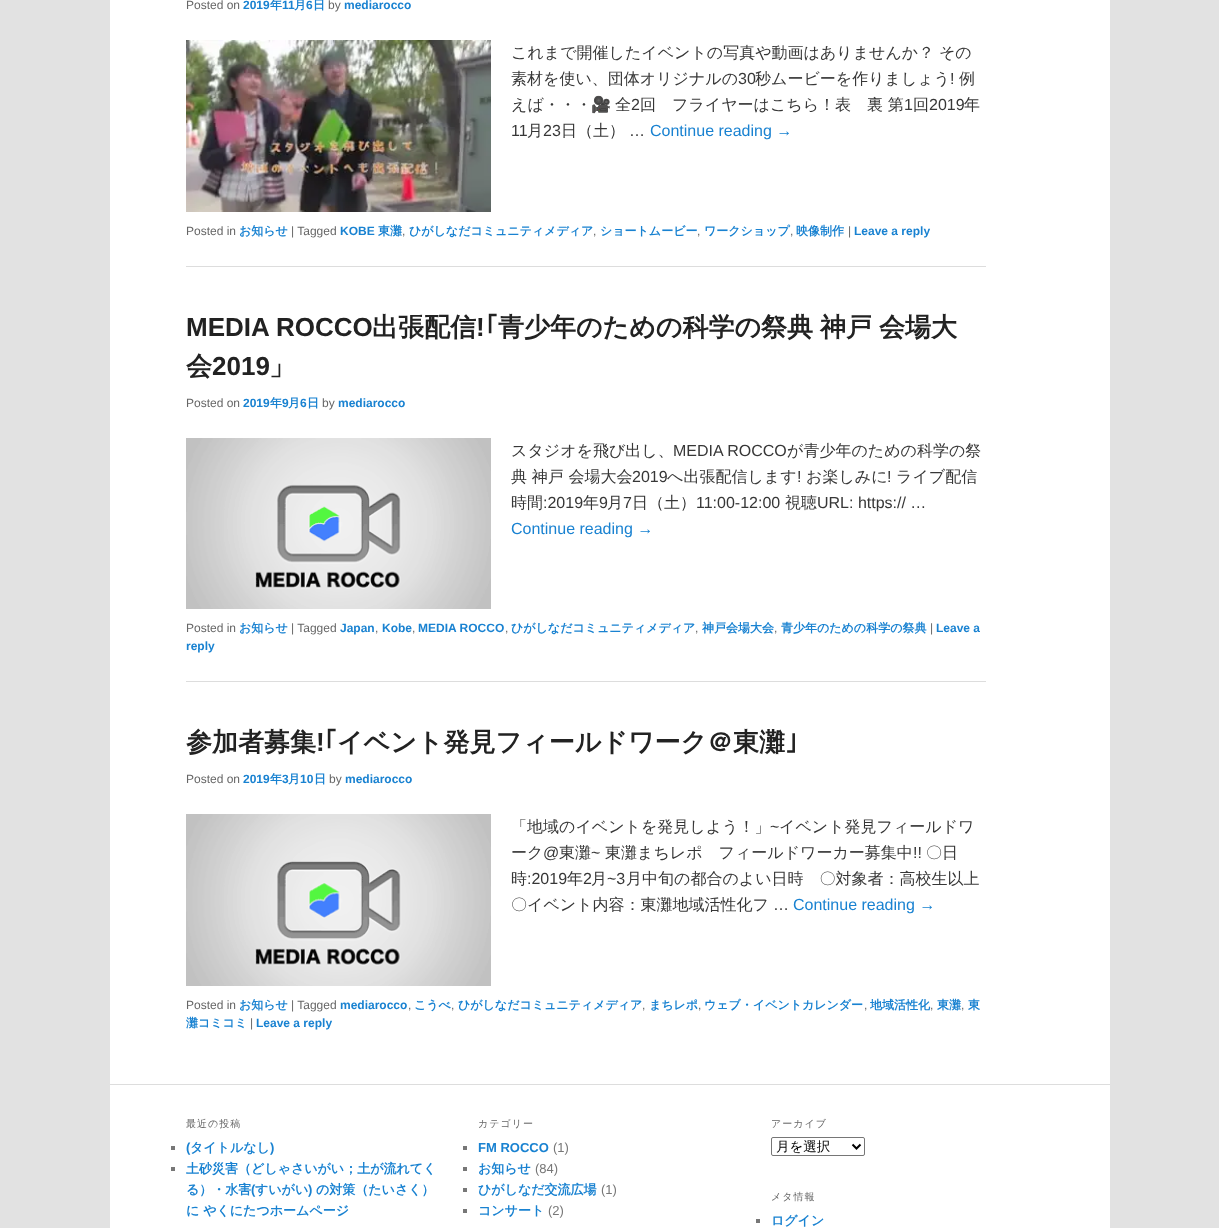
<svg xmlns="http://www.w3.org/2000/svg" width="1219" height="1228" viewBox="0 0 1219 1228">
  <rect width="100%" height="100%" fill="#e2e2e2"/>
  <rect x="110" y="0" width="1000" height="1228" fill="#ffffff"/>
  <rect x="186" y="266" width="800" height="1" fill="#dddddd"/>
  <text x="186" y="9" font-family="Liberation Sans" font-size="12" fill="#666666">Posted on</text>
  <text x="243" y="9" font-family="Liberation Sans" font-size="12" font-weight="bold" fill="#1982d1">2019</text>
  <text x="270" y="9" font-family="WenQuanYi Zen Hei" font-size="12" font-weight="bold" fill="#1982d1">年</text>
  <text x="282" y="9" font-family="Liberation Sans" font-size="12" font-weight="bold" fill="#1982d1">11</text>
  <text x="294" y="9" font-family="WenQuanYi Zen Hei" font-size="12" font-weight="bold" fill="#1982d1">月</text>
  <text x="306" y="9" font-family="Liberation Sans" font-size="12" font-weight="bold" fill="#1982d1">6</text>
  <text x="313" y="9" font-family="WenQuanYi Zen Hei" font-size="12" font-weight="bold" fill="#1982d1">日</text>
  <text x="328" y="9" font-family="Liberation Sans" font-size="12" fill="#666666">by</text>
  <text x="344" y="9" font-family="Liberation Sans" font-size="12" font-weight="bold" fill="#1982d1">mediarocco</text>
  <image x="186" y="40" width="305" height="172" href="img1.png"/>
  <text x="511" y="58" font-family="WenQuanYi Zen Hei" font-size="16" font-weight="500" fill="#373737">これまで開催したイベントの写真や動画はありませんか？ その</text>
  <text x="511" y="84" font-family="WenQuanYi Zen Hei" font-size="16" font-weight="500" fill="#373737">素材を使い、団体オリジナルの</text>
  <text x="738" y="84" font-family="Liberation Sans" font-size="16" fill="#373737">30</text>
  <text x="755" y="84" font-family="WenQuanYi Zen Hei" font-size="16" font-weight="500" fill="#373737">秒ムービーを作りましょう</text>
  <text x="950" y="84" font-family="Liberation Sans" font-size="16" fill="#373737">!</text>
  <text x="959" y="84" font-family="WenQuanYi Zen Hei" font-size="16" font-weight="500" fill="#373737">例</text>
  <text x="511" y="110" font-family="WenQuanYi Zen Hei" font-size="16" font-weight="500" fill="#373737">えば・・・</text>
  <text x="591" y="110" font-family="Noto Color Emoji" font-size="16" fill="#373737">🎥</text>
  <text x="615" y="110" font-family="WenQuanYi Zen Hei" font-size="16" font-weight="500" fill="#373737">全</text>
  <text x="631" y="110" font-family="Liberation Sans" font-size="16" fill="#373737">2</text>
  <text x="640" y="110" font-family="WenQuanYi Zen Hei" font-size="16" font-weight="500" fill="#373737">回　フライヤーはこちら！表　裏 第</text>
  <text x="904" y="110" font-family="Liberation Sans" font-size="16" fill="#373737">1</text>
  <text x="913" y="110" font-family="WenQuanYi Zen Hei" font-size="16" font-weight="500" fill="#373737">回</text>
  <text x="929" y="110" font-family="Liberation Sans" font-size="16" fill="#373737">2019</text>
  <text x="964" y="110" font-family="WenQuanYi Zen Hei" font-size="16" font-weight="500" fill="#373737">年</text>
  <text x="511" y="136" font-family="Liberation Sans" font-size="16" fill="#373737">11</text>
  <text x="527" y="136" font-family="WenQuanYi Zen Hei" font-size="16" font-weight="500" fill="#373737">月</text>
  <text x="543" y="136" font-family="Liberation Sans" font-size="16" fill="#373737">23</text>
  <text x="561" y="136" font-family="WenQuanYi Zen Hei" font-size="16" font-weight="500" fill="#373737">日（土）</text>
  <text x="629" y="136" font-family="Liberation Sans" font-size="16" fill="#373737">…</text>
  <text x="650" y="136" font-family="Liberation Sans" font-size="16" fill="#1982d1">Continue reading →</text>
  <text x="186" y="235" font-family="Liberation Sans" font-size="12" fill="#666666">Posted in</text>
  <text x="239" y="235" font-family="WenQuanYi Zen Hei" font-size="12" font-weight="bold" fill="#1982d1">お知らせ</text>
  <text x="291" y="235" font-family="Liberation Sans" font-size="12" fill="#666666">| Tagged</text>
  <text x="340" y="235" font-family="Liberation Sans" font-size="12" font-weight="bold" fill="#1982d1">KOBE</text>
  <text x="378" y="235" font-family="WenQuanYi Zen Hei" font-size="12" font-weight="bold" fill="#1982d1">東灘</text>
  <text x="402" y="235" font-family="Liberation Sans" font-size="12" fill="#666666">,</text>
  <text x="409" y="235" font-family="WenQuanYi Zen Hei" font-size="12" font-weight="bold" fill="#1982d1">ひがしなだコミュニティメディア</text>
  <text x="593" y="235" font-family="Liberation Sans" font-size="12" fill="#666666">,</text>
  <text x="600" y="235" font-family="WenQuanYi Zen Hei" font-size="12" font-weight="bold" fill="#1982d1">ショートムービー</text>
  <text x="697" y="235" font-family="Liberation Sans" font-size="12" fill="#666666">,</text>
  <text x="704" y="235" font-family="WenQuanYi Zen Hei" font-size="12" font-weight="bold" fill="#1982d1">ワークショップ</text>
  <text x="790" y="235" font-family="Liberation Sans" font-size="12" fill="#666666">,</text>
  <text x="796" y="235" font-family="WenQuanYi Zen Hei" font-size="12" font-weight="bold" fill="#1982d1">映像制作</text>
  <text x="848" y="235" font-family="Liberation Sans" font-size="12" fill="#666666">|</text>
  <text x="854" y="235" font-family="Liberation Sans" font-size="12" font-weight="bold" fill="#1982d1">Leave a reply</text>
  <rect x="186" y="681" width="800" height="1" fill="#dddddd"/>
  <text x="186" y="336" font-family="Liberation Sans" font-size="26" font-weight="bold" fill="#222222">MEDIA ROCCO</text>
  <text x="372" y="336" font-family="WenQuanYi Zen Hei" font-size="26" font-weight="bold" fill="#222222">出張配信</text>
  <text x="476" y="336" font-family="Liberation Sans" font-size="26" font-weight="bold" fill="#222222">!</text>
  <text x="485" y="336" font-family="IPAPGothic" font-size="26" font-weight="bold" fill="#222222">｢</text>
  <text x="498" y="336" font-family="WenQuanYi Zen Hei" font-size="26" font-weight="bold" fill="#222222">青少年のための科学の祭典</text>
  <text x="820" y="336" font-family="WenQuanYi Zen Hei" font-size="26" font-weight="bold" fill="#222222">神戸</text>
  <text x="879" y="336" font-family="WenQuanYi Zen Hei" font-size="26" font-weight="bold" fill="#222222">会場大</text>
  <text x="186" y="375" font-family="WenQuanYi Zen Hei" font-size="26" font-weight="bold" fill="#222222">会</text>
  <text x="212" y="375" font-family="Liberation Sans" font-size="26" font-weight="bold" fill="#222222">2019</text>
  <text x="269" y="375" font-family="WenQuanYi Zen Hei" font-size="26" font-weight="bold" fill="#222222">」</text>
  <text x="186" y="407" font-family="Liberation Sans" font-size="12" fill="#666666">Posted on</text>
  <text x="243" y="407" font-family="Liberation Sans" font-size="12" font-weight="bold" fill="#1982d1">2019</text>
  <text x="270" y="407" font-family="WenQuanYi Zen Hei" font-size="12" font-weight="bold" fill="#1982d1">年</text>
  <text x="282" y="407" font-family="Liberation Sans" font-size="12" font-weight="bold" fill="#1982d1">9</text>
  <text x="288" y="407" font-family="WenQuanYi Zen Hei" font-size="12" font-weight="bold" fill="#1982d1">月</text>
  <text x="300" y="407" font-family="Liberation Sans" font-size="12" font-weight="bold" fill="#1982d1">6</text>
  <text x="307" y="407" font-family="WenQuanYi Zen Hei" font-size="12" font-weight="bold" fill="#1982d1">日</text>
  <text x="322" y="407" font-family="Liberation Sans" font-size="12" fill="#666666">by</text>
  <text x="338" y="407" font-family="Liberation Sans" font-size="12" font-weight="bold" fill="#1982d1">mediarocco</text>
  <image x="186" y="438" width="305" height="171" href="img2.png"/>
  <text x="511" y="456" font-family="WenQuanYi Zen Hei" font-size="16" font-weight="500" fill="#373737">スタジオを飛び出し、</text>
  <text x="673" y="456" font-family="Liberation Sans" font-size="16" fill="#373737">MEDIA ROCCO</text>
  <text x="787" y="456" font-family="WenQuanYi Zen Hei" font-size="16" font-weight="500" fill="#373737">が青少年のための科学の祭</text>
  <text x="511" y="482" font-family="WenQuanYi Zen Hei" font-size="16" font-weight="500" fill="#373737">典 神戸 会場大会</text>
  <text x="632" y="482" font-family="Liberation Sans" font-size="16" fill="#373737">2019</text>
  <text x="667" y="482" font-family="WenQuanYi Zen Hei" font-size="16" font-weight="500" fill="#373737">へ出張配信します</text>
  <text x="797" y="482" font-family="Liberation Sans" font-size="16" fill="#373737">!</text>
  <text x="806" y="482" font-family="WenQuanYi Zen Hei" font-size="16" font-weight="500" fill="#373737">お楽しみに</text>
  <text x="887" y="482" font-family="Liberation Sans" font-size="16" fill="#373737">!</text>
  <text x="896" y="482" font-family="WenQuanYi Zen Hei" font-size="16" font-weight="500" fill="#373737">ライブ配信</text>
  <text x="511" y="508" font-family="WenQuanYi Zen Hei" font-size="16" font-weight="500" fill="#373737">時間</text>
  <text x="543" y="508" font-family="Liberation Sans" font-size="16" fill="#373737">:2019</text>
  <text x="583" y="508" font-family="WenQuanYi Zen Hei" font-size="16" font-weight="500" fill="#373737">年</text>
  <text x="599" y="508" font-family="Liberation Sans" font-size="16" fill="#373737">9</text>
  <text x="607" y="508" font-family="WenQuanYi Zen Hei" font-size="16" font-weight="500" fill="#373737">月</text>
  <text x="623" y="508" font-family="Liberation Sans" font-size="16" fill="#373737">7</text>
  <text x="632" y="508" font-family="WenQuanYi Zen Hei" font-size="16" font-weight="500" fill="#373737">日（土）</text>
  <text x="696" y="508" font-family="Liberation Sans" font-size="16" fill="#373737">11:00-12:00</text>
  <text x="785" y="508" font-family="WenQuanYi Zen Hei" font-size="16" font-weight="500" fill="#373737">視聴</text>
  <text x="817" y="508" font-family="Liberation Sans" font-size="16" fill="#373737">URL: https:// …</text>
  <text x="511" y="534" font-family="Liberation Sans" font-size="16" fill="#1982d1">Continue reading →</text>
  <text x="186" y="632" font-family="Liberation Sans" font-size="12" fill="#666666">Posted in</text>
  <text x="239" y="632" font-family="WenQuanYi Zen Hei" font-size="12" font-weight="bold" fill="#1982d1">お知らせ</text>
  <text x="291" y="632" font-family="Liberation Sans" font-size="12" fill="#666666">| Tagged</text>
  <text x="340" y="632" font-family="Liberation Sans" font-size="12" font-weight="bold" fill="#1982d1">Japan</text>
  <text x="375" y="632" font-family="Liberation Sans" font-size="12" fill="#666666">,</text>
  <text x="382" y="632" font-family="Liberation Sans" font-size="12" font-weight="bold" fill="#1982d1">Kobe</text>
  <text x="412" y="632" font-family="Liberation Sans" font-size="12" fill="#666666">,</text>
  <text x="418" y="632" font-family="Liberation Sans" font-size="12" font-weight="bold" fill="#1982d1">MEDIA ROCCO</text>
  <text x="505" y="632" font-family="Liberation Sans" font-size="12" fill="#666666">,</text>
  <text x="511" y="632" font-family="WenQuanYi Zen Hei" font-size="12" font-weight="bold" fill="#1982d1">ひがしなだコミュニティメディア</text>
  <text x="695" y="632" font-family="Liberation Sans" font-size="12" fill="#666666">,</text>
  <text x="702" y="632" font-family="WenQuanYi Zen Hei" font-size="12" font-weight="bold" fill="#1982d1">神戸会場大会</text>
  <text x="774" y="632" font-family="Liberation Sans" font-size="12" fill="#666666">,</text>
  <text x="781" y="632" font-family="WenQuanYi Zen Hei" font-size="12" font-weight="bold" fill="#1982d1">青少年のための科学の祭典</text>
  <text x="930" y="632" font-family="Liberation Sans" font-size="12" fill="#666666">|</text>
  <text x="936" y="632" font-family="Liberation Sans" font-size="12" font-weight="bold" fill="#1982d1">Leave a</text>
  <text x="186" y="650" font-family="Liberation Sans" font-size="12" font-weight="bold" fill="#1982d1">reply</text>
  <text x="186" y="751" font-family="WenQuanYi Zen Hei" font-size="26" font-weight="bold" fill="#222222">参加者募集</text>
  <text x="316" y="751" font-family="Liberation Sans" font-size="26" font-weight="bold" fill="#222222">!</text>
  <text x="324" y="751" font-family="IPAPGothic" font-size="26" font-weight="bold" fill="#222222">｢</text>
  <text x="337" y="751" font-family="WenQuanYi Zen Hei" font-size="26" font-weight="bold" fill="#222222">イベント発見フィールドワーク＠東灘</text>
  <text x="785" y="751" font-family="IPAPGothic" font-size="26" font-weight="bold" fill="#222222">｣</text>
  <text x="186" y="783" font-family="Liberation Sans" font-size="12" fill="#666666">Posted on</text>
  <text x="243" y="783" font-family="Liberation Sans" font-size="12" font-weight="bold" fill="#1982d1">2019</text>
  <text x="270" y="783" font-family="WenQuanYi Zen Hei" font-size="12" font-weight="bold" fill="#1982d1">年</text>
  <text x="282" y="783" font-family="Liberation Sans" font-size="12" font-weight="bold" fill="#1982d1">3</text>
  <text x="288" y="783" font-family="WenQuanYi Zen Hei" font-size="12" font-weight="bold" fill="#1982d1">月</text>
  <text x="300" y="783" font-family="Liberation Sans" font-size="12" font-weight="bold" fill="#1982d1">10</text>
  <text x="314" y="783" font-family="WenQuanYi Zen Hei" font-size="12" font-weight="bold" fill="#1982d1">日</text>
  <text x="329" y="783" font-family="Liberation Sans" font-size="12" fill="#666666">by</text>
  <text x="345" y="783" font-family="Liberation Sans" font-size="12" font-weight="bold" fill="#1982d1">mediarocco</text>
  <image x="186" y="814" width="305" height="172" href="img3.png"/>
  <text x="511" y="832" font-family="WenQuanYi Zen Hei" font-size="16" font-weight="500" fill="#373737">「地域のイベントを発見しよう！」</text>
  <text x="770" y="832" font-family="Liberation Sans" font-size="16" fill="#373737">~</text>
  <text x="779" y="832" font-family="WenQuanYi Zen Hei" font-size="16" font-weight="500" fill="#373737">イベント発見フィールドワ</text>
  <text x="511" y="858" font-family="WenQuanYi Zen Hei" font-size="16" font-weight="500" fill="#373737">ーク</text>
  <text x="543" y="858" font-family="Liberation Sans" font-size="16" fill="#373737">@</text>
  <text x="559" y="858" font-family="WenQuanYi Zen Hei" font-size="16" font-weight="500" fill="#373737">東灘</text>
  <text x="591" y="858" font-family="Liberation Sans" font-size="16" fill="#373737">~</text>
  <text x="605" y="858" font-family="WenQuanYi Zen Hei" font-size="16" font-weight="500" fill="#373737">東灘まちレポ　フィールドワーカー募集中</text>
  <text x="913" y="858" font-family="Liberation Sans" font-size="16" fill="#373737">!!</text>
  <text x="926" y="858" font-family="WenQuanYi Zen Hei" font-size="16" font-weight="500" fill="#373737">〇日</text>
  <text x="511" y="884" font-family="WenQuanYi Zen Hei" font-size="16" font-weight="500" fill="#373737">時</text>
  <text x="527" y="884" font-family="Liberation Sans" font-size="16" fill="#373737">:2019</text>
  <text x="567" y="884" font-family="WenQuanYi Zen Hei" font-size="16" font-weight="500" fill="#373737">年</text>
  <text x="583" y="884" font-family="Liberation Sans" font-size="16" fill="#373737">2</text>
  <text x="591" y="884" font-family="WenQuanYi Zen Hei" font-size="16" font-weight="500" fill="#373737">月</text>
  <text x="607" y="884" font-family="Liberation Sans" font-size="16" fill="#373737">~3</text>
  <text x="626" y="884" font-family="WenQuanYi Zen Hei" font-size="16" font-weight="500" fill="#373737">月中旬の都合のよい日時　〇対象者：高校生以上</text>
  <text x="511" y="910" font-family="WenQuanYi Zen Hei" font-size="16" font-weight="500" fill="#373737">〇イベント内容：東灘地域活性化フ</text>
  <text x="773" y="910" font-family="Liberation Sans" font-size="16" fill="#373737">…</text>
  <text x="793" y="910" font-family="Liberation Sans" font-size="16" fill="#1982d1">Continue reading →</text>
  <text x="186" y="1009" font-family="Liberation Sans" font-size="12" fill="#666666">Posted in</text>
  <text x="239" y="1009" font-family="WenQuanYi Zen Hei" font-size="12" font-weight="bold" fill="#1982d1">お知らせ</text>
  <text x="291" y="1009" font-family="Liberation Sans" font-size="12" fill="#666666">| Tagged</text>
  <text x="340" y="1009" font-family="Liberation Sans" font-size="12" font-weight="bold" fill="#1982d1">mediarocco</text>
  <text x="408" y="1009" font-family="Liberation Sans" font-size="12" fill="#666666">,</text>
  <text x="414" y="1009" font-family="WenQuanYi Zen Hei" font-size="12" font-weight="bold" fill="#1982d1">こうべ</text>
  <text x="451" y="1009" font-family="Liberation Sans" font-size="12" fill="#666666">,</text>
  <text x="458" y="1009" font-family="WenQuanYi Zen Hei" font-size="12" font-weight="bold" fill="#1982d1">ひがしなだコミュニティメディア</text>
  <text x="642" y="1009" font-family="Liberation Sans" font-size="12" fill="#666666">,</text>
  <text x="649" y="1009" font-family="WenQuanYi Zen Hei" font-size="12" font-weight="bold" fill="#1982d1">まちレポ</text>
  <text x="698" y="1009" font-family="Liberation Sans" font-size="12" fill="#666666">,</text>
  <text x="704" y="1009" font-family="WenQuanYi Zen Hei" font-size="12" font-weight="bold" fill="#1982d1">ウェブ・イベントカレンダー</text>
  <text x="864" y="1009" font-family="Liberation Sans" font-size="12" fill="#666666">,</text>
  <text x="870" y="1009" font-family="WenQuanYi Zen Hei" font-size="12" font-weight="bold" fill="#1982d1">地域活性化</text>
  <text x="930" y="1009" font-family="Liberation Sans" font-size="12" fill="#666666">,</text>
  <text x="937" y="1009" font-family="WenQuanYi Zen Hei" font-size="12" font-weight="bold" fill="#1982d1">東灘</text>
  <text x="961" y="1009" font-family="Liberation Sans" font-size="12" fill="#666666">,</text>
  <text x="968" y="1009" font-family="WenQuanYi Zen Hei" font-size="12" font-weight="bold" fill="#1982d1">東</text>
  <text x="186" y="1027" font-family="WenQuanYi Zen Hei" font-size="12" font-weight="bold" fill="#1982d1">灘コミコミ</text>
  <text x="250" y="1027" font-family="Liberation Sans" font-size="12" fill="#666666">|</text>
  <text x="256" y="1027" font-family="Liberation Sans" font-size="12" font-weight="bold" fill="#1982d1">Leave a reply</text>
  <rect x="110" y="1084" width="1000" height="1" fill="#dddddd"/>
  <text x="186" y="1127" font-family="WenQuanYi Zen Hei" font-size="10" font-weight="500" letter-spacing="1" fill="#666666">最近の投稿</text>
  <rect x="171" y="1146" width="4" height="4" fill="#777777"/>
  <text x="186" y="1152" font-family="Liberation Sans" font-size="13" font-weight="bold" fill="#1982d1">(</text>
  <text x="190" y="1152" font-family="WenQuanYi Zen Hei" font-size="13" font-weight="bold" fill="#1982d1">タイトルなし</text>
  <text x="270" y="1152" font-family="Liberation Sans" font-size="13" font-weight="bold" fill="#1982d1">)</text>
  <rect x="171" y="1167" width="4" height="4" fill="#777777"/>
  <text x="186" y="1173" font-family="WenQuanYi Zen Hei" font-size="13" font-weight="bold" fill="#1982d1">土砂災害（どしゃさいがい；土が流れてく</text>
  <text x="186" y="1194" font-family="WenQuanYi Zen Hei" font-size="13" font-weight="bold" fill="#1982d1">る）・水害</text>
  <text x="251" y="1194" font-family="Liberation Sans" font-size="13" font-weight="bold" fill="#1982d1">(</text>
  <text x="255" y="1194" font-family="WenQuanYi Zen Hei" font-size="13" font-weight="bold" fill="#1982d1">すいがい</text>
  <text x="308" y="1194" font-family="Liberation Sans" font-size="13" font-weight="bold" fill="#1982d1">)</text>
  <text x="316" y="1194" font-family="WenQuanYi Zen Hei" font-size="13" font-weight="bold" fill="#1982d1">の対策（たいさく）</text>
  <text x="186" y="1215" font-family="WenQuanYi Zen Hei" font-size="13" font-weight="bold" fill="#1982d1">に やくにたつホームページ</text>
  <text x="478" y="1127" font-family="WenQuanYi Zen Hei" font-size="10" font-weight="500" letter-spacing="1" fill="#666666">カテゴリー</text>
  <rect x="463" y="1146" width="4" height="4" fill="#777777"/>
  <text x="478" y="1152" font-family="Liberation Sans" font-size="13" font-weight="bold" fill="#1982d1">FM ROCCO</text>
  <text x="553" y="1152" font-family="Liberation Sans" font-size="13" fill="#777777">(1)</text>
  <rect x="463" y="1167" width="4" height="4" fill="#777777"/>
  <text x="478" y="1173" font-family="WenQuanYi Zen Hei" font-size="13" font-weight="bold" fill="#1982d1">お知らせ</text>
  <text x="535" y="1173" font-family="Liberation Sans" font-size="13" fill="#777777">(84)</text>
  <rect x="463" y="1188" width="4" height="4" fill="#777777"/>
  <text x="478" y="1194" font-family="WenQuanYi Zen Hei" font-size="13" font-weight="bold" fill="#1982d1">ひがしなだ交流広場</text>
  <text x="601" y="1194" font-family="Liberation Sans" font-size="13" fill="#777777">(1)</text>
  <rect x="463" y="1209" width="4" height="4" fill="#777777"/>
  <text x="478" y="1215" font-family="WenQuanYi Zen Hei" font-size="13" font-weight="bold" fill="#1982d1">コンサート</text>
  <text x="548" y="1215" font-family="Liberation Sans" font-size="13" fill="#777777">(2)</text>
  <text x="771" y="1127" font-family="WenQuanYi Zen Hei" font-size="10" font-weight="500" letter-spacing="1" fill="#666666">アーカイブ</text>
  <rect x="771.5" y="1137.5" width="93" height="18" rx="1.5" fill="none" stroke="#767676"/>
  <path d="M852.5 1144.5L856.5 1148.5L860.5 1144.5" fill="none" stroke="#000000" stroke-width="2"/>
  <text x="776" y="1151" font-family="WenQuanYi Zen Hei" font-size="13.5" font-weight="500" fill="#000000">月を選択</text>
  <text x="771" y="1200" font-family="WenQuanYi Zen Hei" font-size="10" font-weight="500" letter-spacing="1" fill="#666666">メタ情報</text>
  <rect x="756" y="1219" width="4" height="4" fill="#777777"/>
  <text x="771" y="1225" font-family="WenQuanYi Zen Hei" font-size="13" font-weight="bold" fill="#1982d1">ログイン</text>
</svg>
